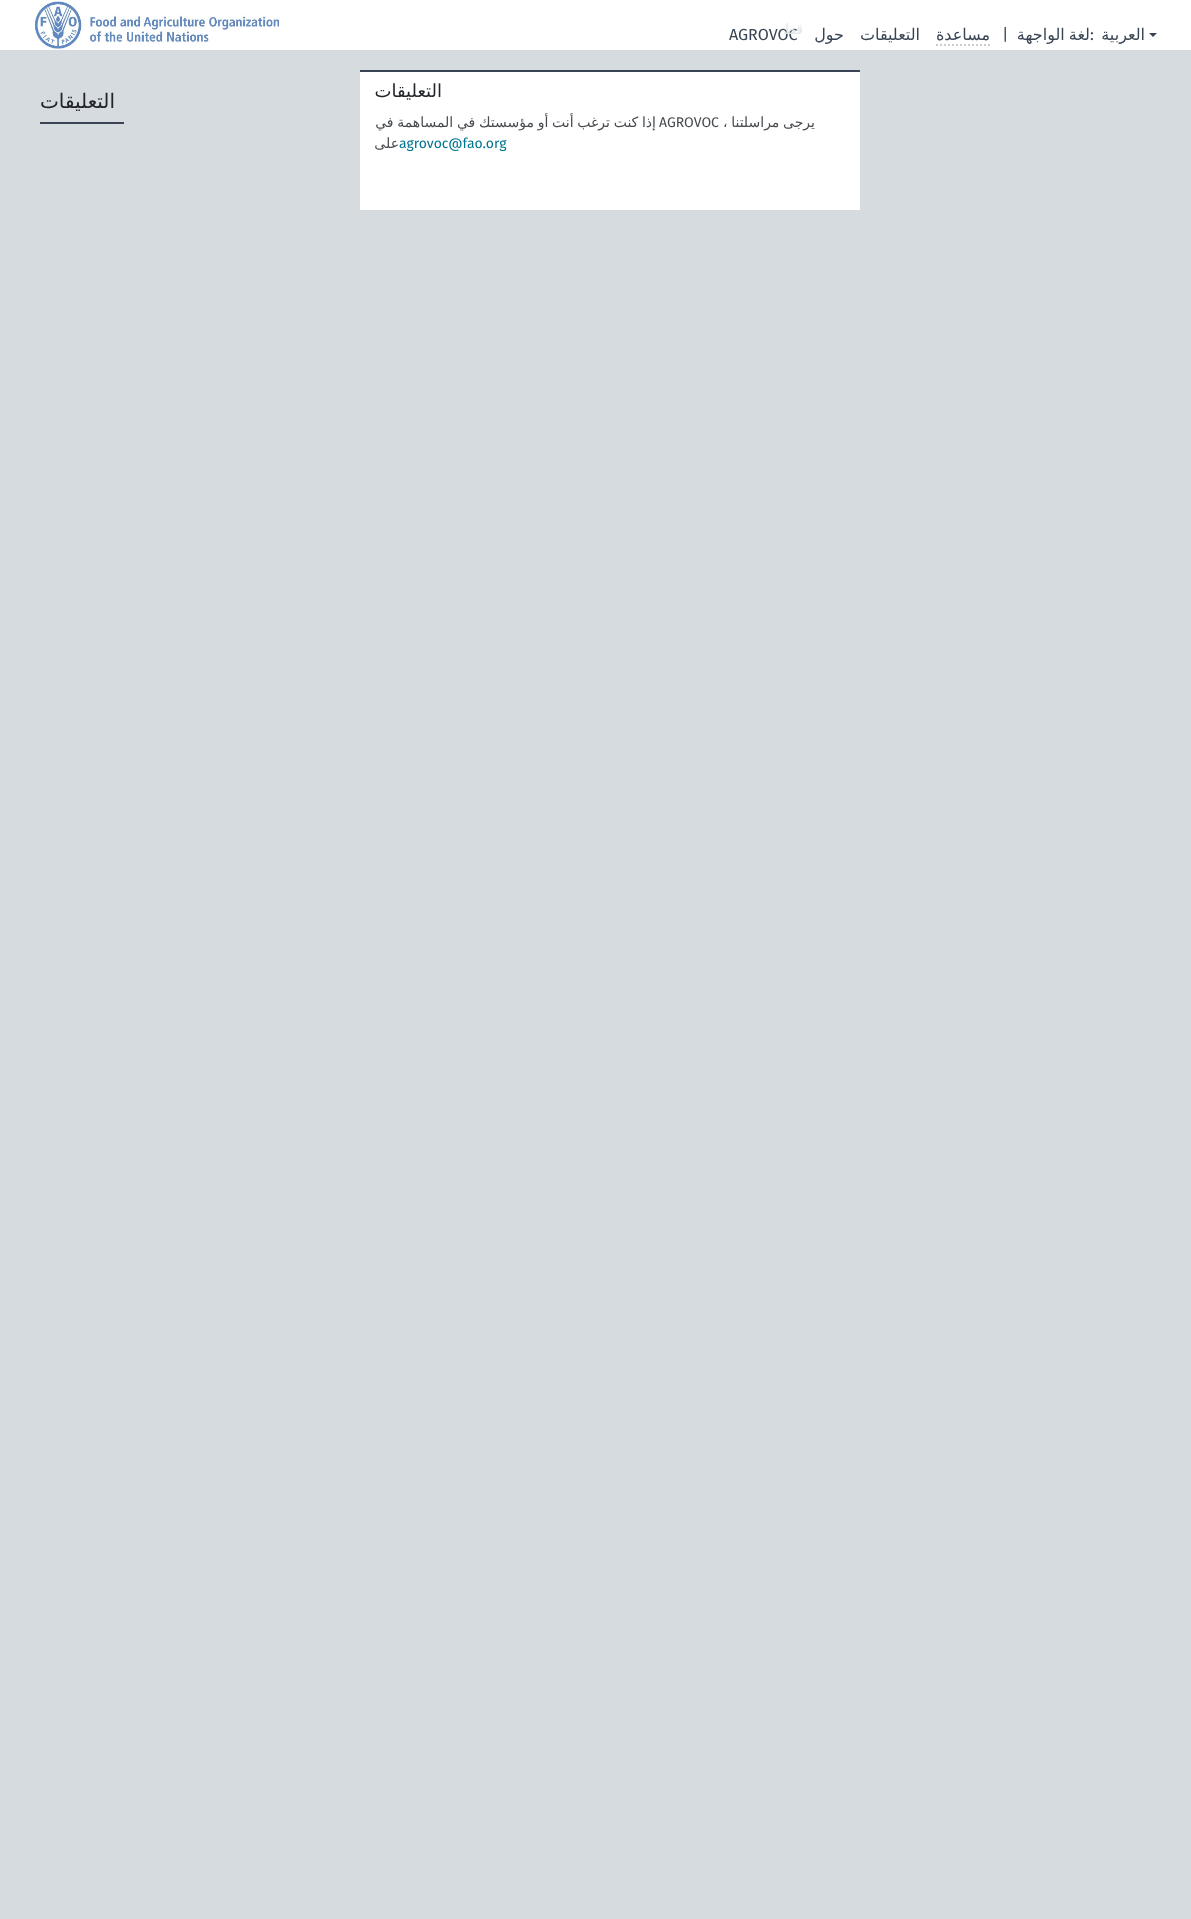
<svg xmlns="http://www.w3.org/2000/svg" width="1191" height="1919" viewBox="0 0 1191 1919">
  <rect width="100%" height="100%" fill="#d5dbde"/>
  <rect x="0" y="0" width="1191" height="50" fill="#ffffff"/>
  <image x="34" y="1" width="246" height="49" href="img1.png"/>
  <path d="M1149 33H1157L1153 37Z" fill="#394554"/>
  <text x="1145" y="40" font-family="DejaVu Sans" font-size="16" direction="rtl" fill="#394554">العربية</text>
  <text x="1090" y="40" font-family="Fira Sans" font-size="16" fill="#394554">:</text>
  <text x="1090" y="40" word-spacing="-1" font-family="DejaVu Sans" font-size="16" direction="rtl" fill="#394554">لغة الواجهة</text>
  <text x="1002" y="40" font-family="Fira Sans" font-size="16" fill="#394554">|</text>
  <text x="990" y="40" font-family="DejaVu Sans" font-size="16" direction="rtl" fill="#394554">مساعدة</text>
  <path d="M936 45H990" fill="none" stroke="#cccccc" stroke-width="2" stroke-dasharray="2 2"/>
  <text x="729" y="40" font-family="Fira Sans" font-size="16" fill="#394554">AGROVOC</text>
  <text x="803" y="34" font-family="DejaVu Sans" font-size="14" direction="rtl" fill="#e2e4e6">قط</text>
  <text x="920" y="40" font-family="DejaVu Sans" font-size="16" direction="rtl" fill="#394554">التعليقات</text>
  <text x="844" y="40" font-family="DejaVu Sans" font-size="16" direction="rtl" fill="#394554">حول</text>
  <rect x="360" y="72" width="500" height="138" fill="#ffffff"/>
  <rect x="360" y="70" width="500" height="2" fill="#394554"/>
  <text x="442" y="97" font-family="DejaVu Sans" font-size="18" direction="rtl" fill="#212529">التعليقات</text>
  <text x="815" y="127" word-spacing="-0.75" font-family="DejaVu Sans" font-size="14" direction="rtl" fill="#474b4f">يرجى مراسلتنا</text>
  <text x="723" y="127" font-family="DejaVu Sans" font-size="14" fill="#474b4f">،</text>
  <text x="659" y="127" font-family="Fira Sans" font-size="14" fill="#474b4f">AGROVOC</text>
  <text x="656" y="127" word-spacing="-0.75" font-family="DejaVu Sans" font-size="14" direction="rtl" fill="#474b4f">إذا كنت ترغب أنت أو مؤسستك في المساهمة في</text>
  <text x="399" y="148" font-family="Fira Sans" font-size="14" fill="#00748f">agrovoc@fao.org</text>
  <text x="399" y="148" font-family="DejaVu Sans" font-size="14" direction="rtl" fill="#474b4f">على</text>
  <rect x="40" y="122" width="84" height="2" fill="#394554"/>
  <text x="115" y="108" font-family="DejaVu Sans" font-size="20" direction="rtl" fill="#212529">التعليقات</text>
</svg>
